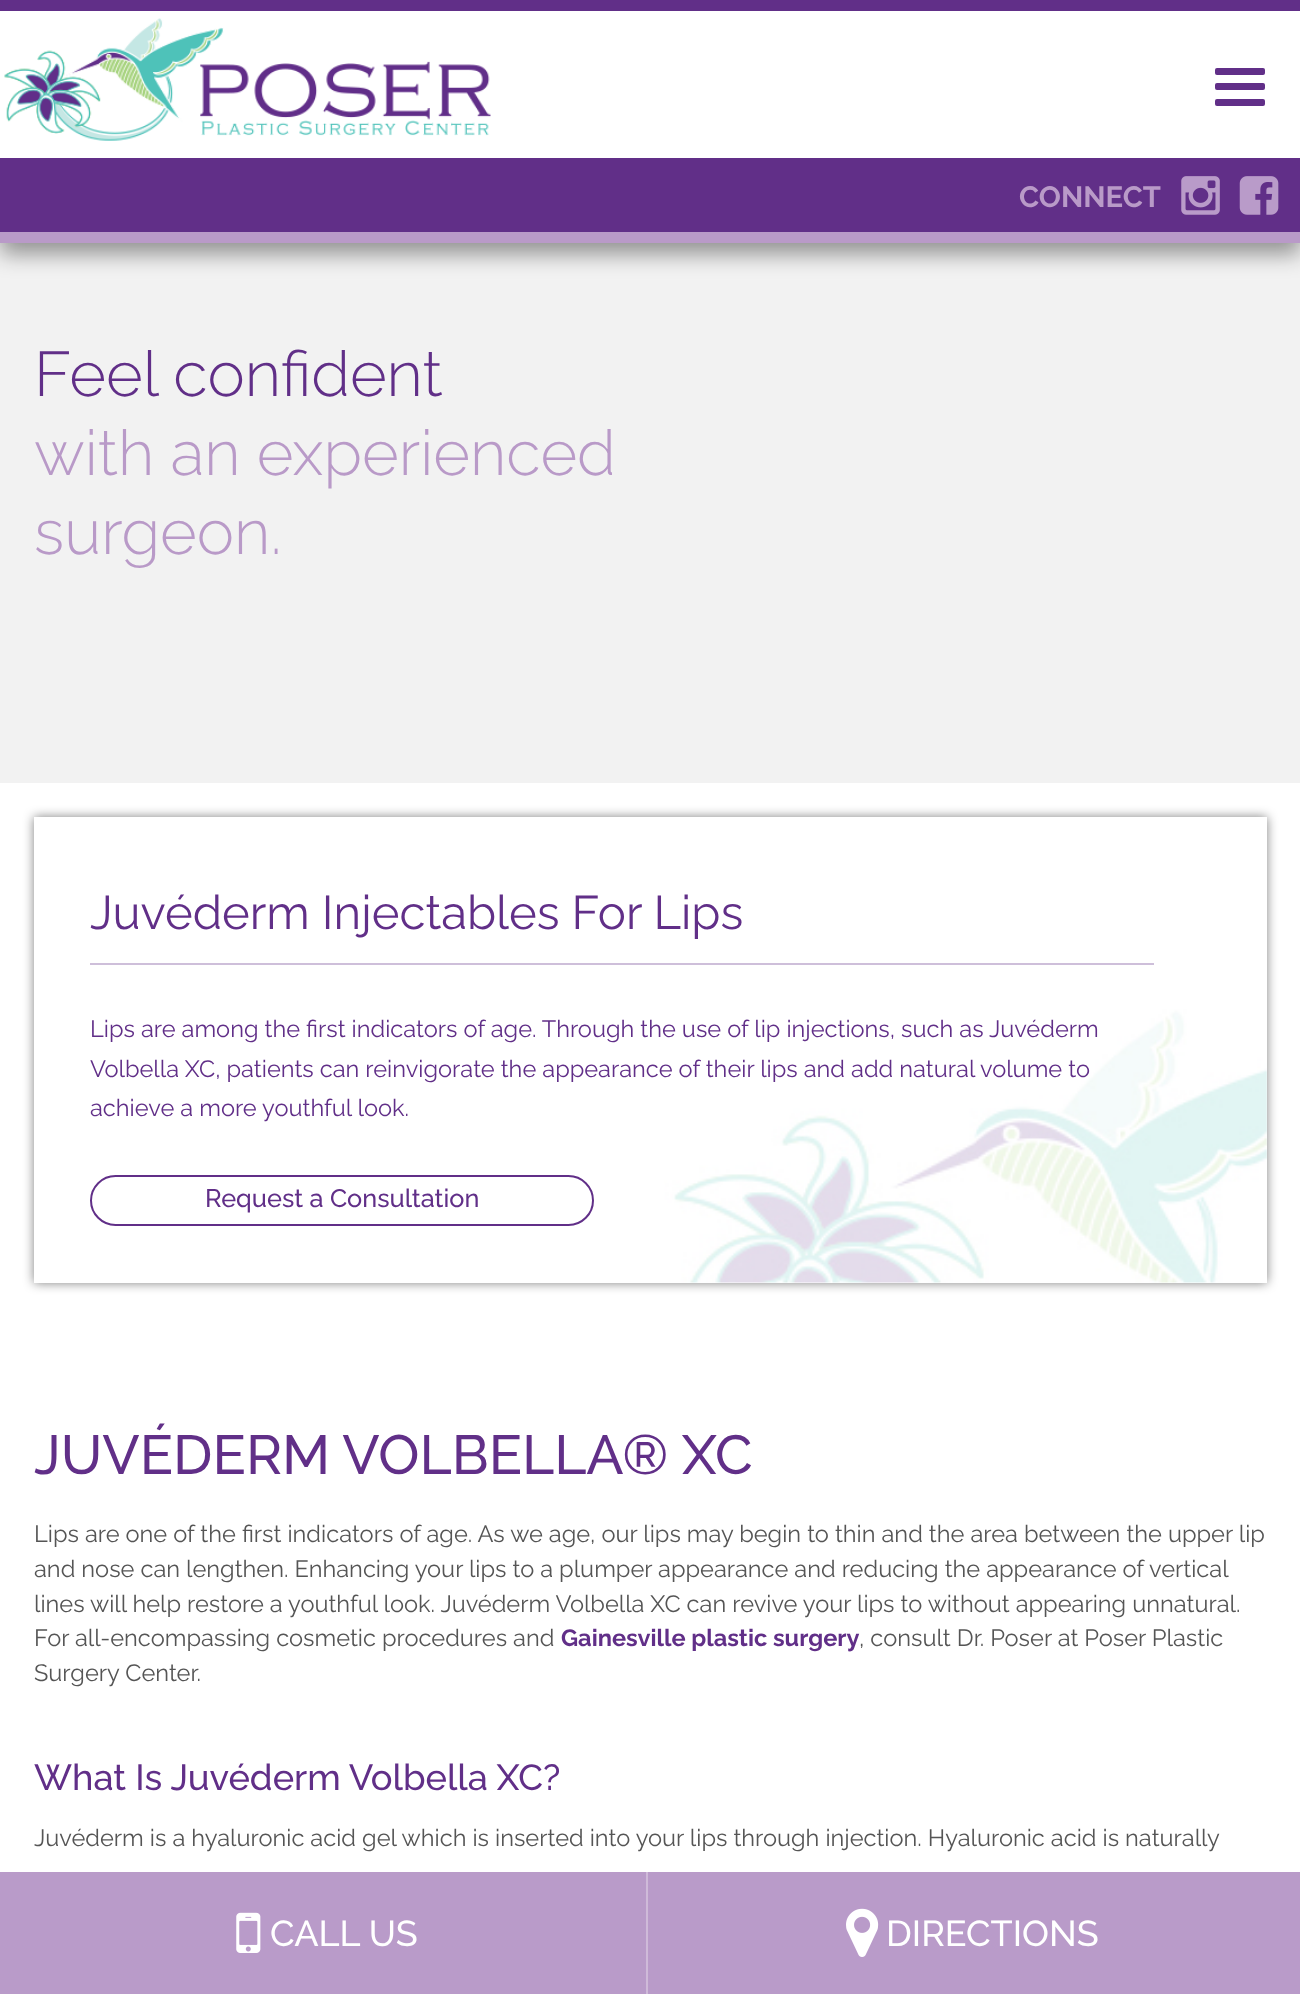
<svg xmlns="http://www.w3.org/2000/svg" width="1300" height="1994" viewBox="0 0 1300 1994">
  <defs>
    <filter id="blur1" x="-50%" y="-200%" width="200%" height="500%"><feGaussianBlur stdDeviation="11"/></filter>
    <clipPath id="clip1"><path d="M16 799H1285V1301H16ZM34 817H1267V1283H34Z" clip-rule="evenodd"/></clipPath>
    <filter id="blur2" x="-50%" y="-200%" width="200%" height="500%"><feGaussianBlur stdDeviation="5.5"/></filter>
  </defs>
  <rect width="100%" height="100%" fill="#ffffff"/>
  <rect x="0" y="243" width="1300" height="540" fill="#f2f2f2"/>
  <rect x="0" y="11" width="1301" height="243" fill="#000000" fill-opacity="0.4" filter="url(#blur1)"/>
  <rect x="0" y="11" width="1300" height="147" fill="#ffffff"/>
  <rect x="0" y="232" width="1300" height="11" fill="#b99ac8"/>
  <rect x="0" y="0" width="1300" height="11" fill="#612f88"/>
  <image x="4" y="18" width="487" height="123" href="img1.png"/>
  <rect x="1215" y="68" width="50" height="7" rx="2" fill="#612f88"/>
  <rect x="1215" y="83" width="50" height="7" rx="2" fill="#612f88"/>
  <rect x="1215" y="99" width="50" height="7" rx="2" fill="#612f88"/>
  <rect x="0" y="158" width="1300" height="74" fill="#612f88"/>
  <text x="1019" y="207" font-family="Raleway" font-size="29.25" font-weight="bold" fill="#b99ac8">CONNECT</text>
  <image x="1181" y="176" width="39" height="39" href="img2.png"/>
  <image x="1239" y="176" width="40" height="39" href="img3.png"/>
  <text x="34" y="396" font-family="Raleway" font-size="63" font-weight="300" fill="#612f88">Feel confident</text>
  <text x="34" y="475" font-family="Raleway" font-size="63" font-weight="300" fill="#b99ac8">with an experienced</text>
  <text x="34" y="554" font-family="Raleway" font-size="63" font-weight="300" fill="#b99ac8">surgeon.</text>
  <g clip-path="url(#clip1)">
    <rect x="34" y="817" width="1233" height="466" fill="#000000" fill-opacity="0.5" filter="url(#blur2)"/>
  </g>
  <image x="663" y="1001" width="604" height="282" href="img4.png"/>
  <rect x="90" y="963" width="1064" height="2" fill="#cebfda"/>
  <text x="90" y="929" font-family="Raleway" font-size="47.25" fill="#612f88">Juvéderm Injectables For Lips</text>
  <text x="90" y="1037" font-family="Raleway" font-size="23.62" fill="#612f88">Lips are among the first indicators of age. Through the use of lip injections, such as Juvéderm</text>
  <text x="90" y="1077" font-family="Raleway" font-size="23.62" fill="#612f88">Volbella XC, patients can reinvigorate the appearance of their lips and add natural volume to</text>
  <text x="90" y="1116" font-family="Raleway" font-size="23.62" fill="#612f88">achieve a more youthful look.</text>
  <rect x="91" y="1176" width="502" height="49" rx="24.5" fill="none" stroke="#612f88" stroke-width="2"/>
  <text x="205" y="1207" font-family="Raleway" font-size="25.25" font-weight="500" fill="#612f88">Request a Consultation</text>
  <text x="34" y="1474" font-family="Raleway" font-size="55.1" font-weight="500" fill="#612f88">JUVÉDERM VOLBELLA® XC</text>
  <text x="34" y="1542" font-family="Raleway" font-size="23.62" fill="#555555">Lips are one of the first indicators of age. As we age, our lips may begin to thin and the area between the upper lip</text>
  <text x="34" y="1577" font-family="Raleway" font-size="23.62" fill="#555555">and nose can lengthen. Enhancing your lips to a plumper appearance and reducing the appearance of vertical</text>
  <text x="34" y="1612" font-family="Raleway" font-size="23.62" fill="#555555">lines will help restore a youthful look. Juvéderm Volbella XC can revive your lips to without appearing unnatural.</text>
  <text x="34" y="1646" font-family="Raleway" font-size="23.62" fill="#555555">For all-encompassing cosmetic procedures and</text>
  <text x="561" y="1646" font-family="Raleway" font-size="23.62" font-weight="bold" fill="#612f88">Gainesville plastic surgery</text>
  <text x="859" y="1646" font-family="Raleway" font-size="23.62" fill="#555555">, consult Dr. Poser at Poser Plastic</text>
  <text x="34" y="1681" font-family="Raleway" font-size="23.62" fill="#555555">Surgery Center.</text>
  <text x="34" y="1790" font-family="Raleway" font-size="36.25" font-weight="500" fill="#612f88">What Is Juvéderm Volbella XC?</text>
  <text x="34" y="1846" font-family="Raleway" font-size="23.62" fill="#555555">Juvéderm is a hyaluronic acid gel which is inserted into your lips through injection. Hyaluronic acid is naturally</text>
  <rect x="0" y="1872" width="1300" height="122" fill="#b99bc9"/>
  <rect x="646" y="1872" width="2" height="122" fill="#cfbad9"/>
  <image x="236" y="1912" width="25" height="41" href="img5.png"/>
  <text x="270" y="1946" font-family="Raleway" font-size="36" font-weight="500" fill="#ffffff">CALL US</text>
  <image x="846" y="1908" width="33" height="49" href="img6.png"/>
  <text x="886" y="1946" font-family="Raleway" font-size="36" font-weight="500" fill="#ffffff">DIRECTIONS</text>
</svg>
